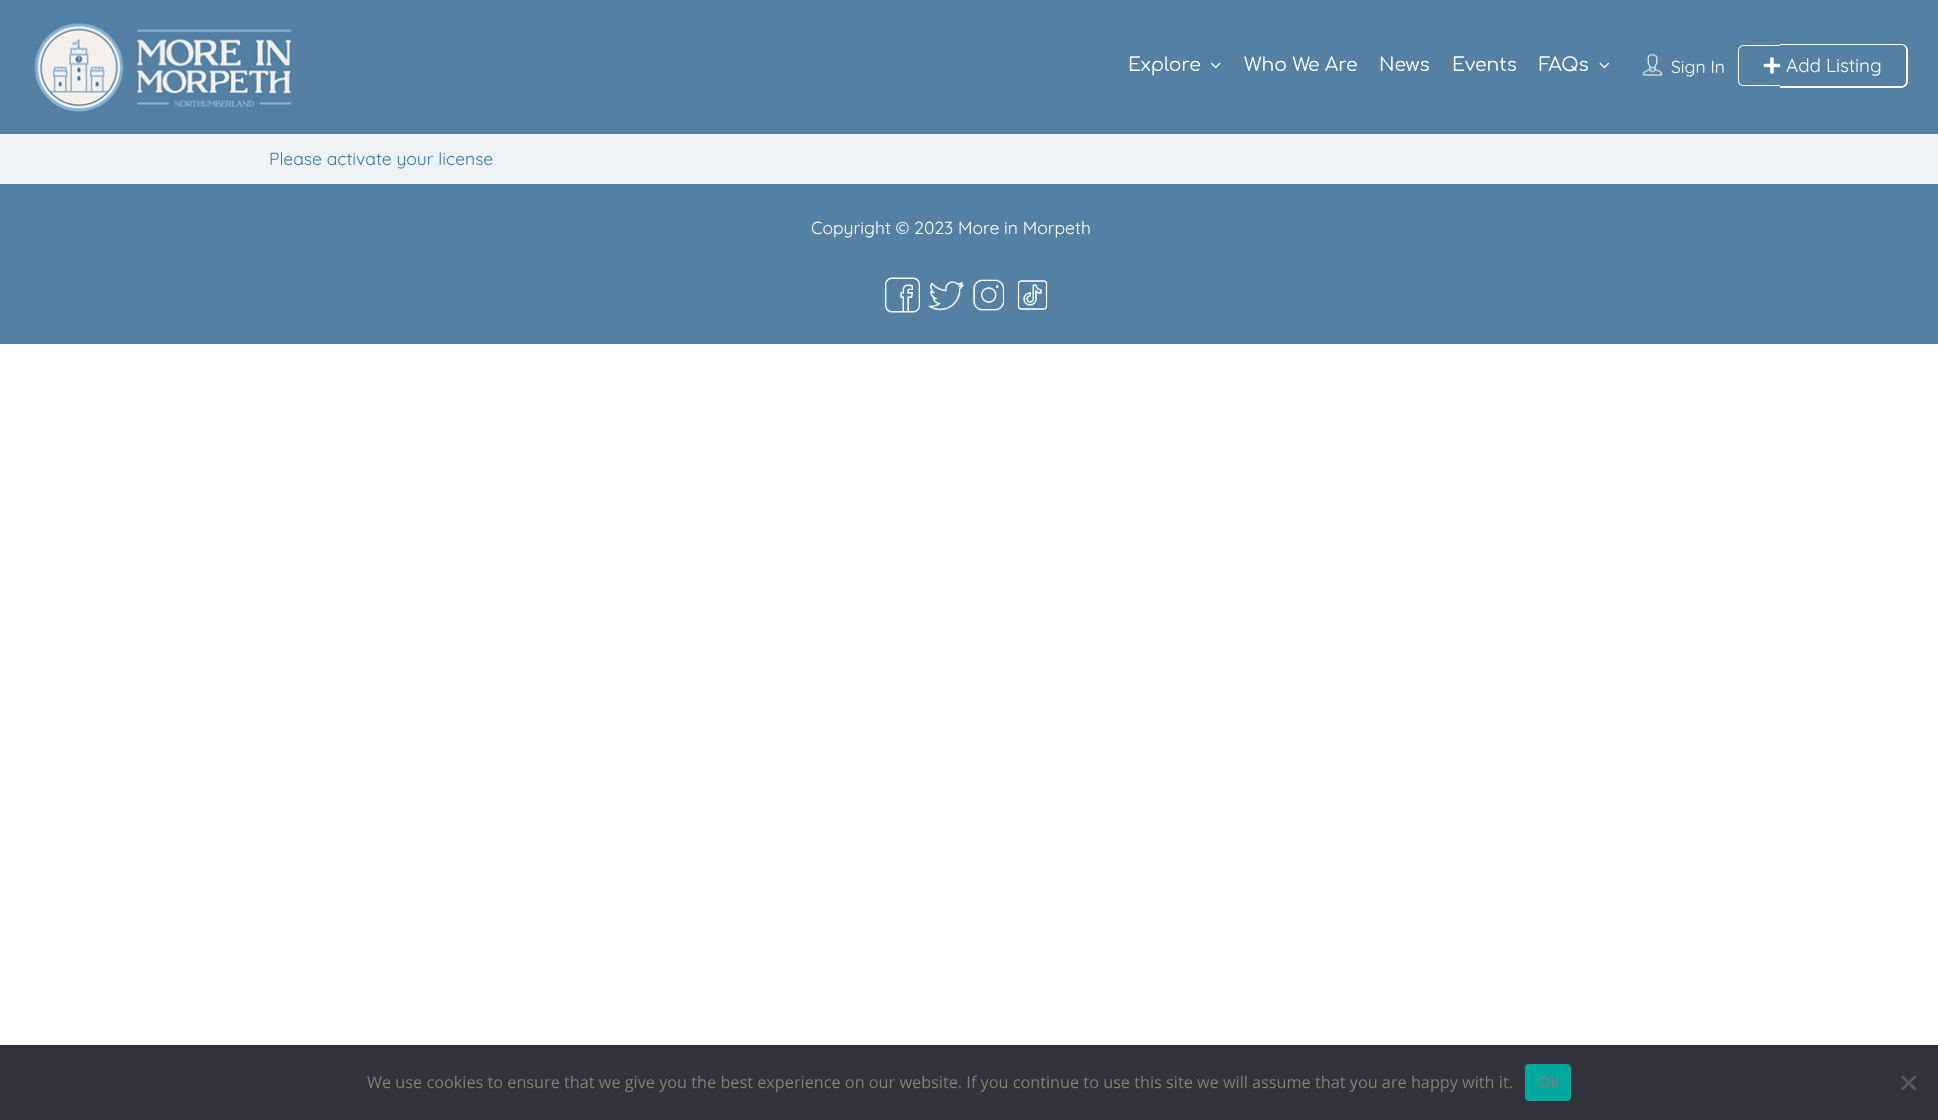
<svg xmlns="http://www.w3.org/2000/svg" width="1938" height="1120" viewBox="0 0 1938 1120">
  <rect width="100%" height="100%" fill="#ffffff"/>
  <rect x="0" y="0" width="1938" height="134" fill="#5380a3"/>
  <image x="34" y="23" width="259" height="89" href="img1.png"/>
  <text x="1128" y="71" font-family="Comfortaa" font-size="18.75" fill="#ffffff">Explore</text>
  <image x="1210" y="62" width="11" height="7" href="img2.png"/>
  <text x="1244" y="71" font-family="Comfortaa" font-size="18.75" fill="#ffffff">Who We Are</text>
  <text x="1379" y="71" font-family="Comfortaa" font-size="18.75" fill="#ffffff">News</text>
  <text x="1452" y="71" font-family="Comfortaa" font-size="18.75" fill="#ffffff">Events</text>
  <text x="1539" y="71" font-family="Comfortaa" font-size="18.75" fill="#ffffff">FAQs</text>
  <image x="1599" y="62" width="11" height="7" href="img3.png"/>
  <image x="1642" y="53" width="21" height="23" href="img4.png"/>
  <text x="1671" y="73" font-family="Quicksand" font-size="17.5" fill="#ffffff">Sign In</text>
  <path d="M1744 45H1780V86H1744C1740 86 1738 83 1738 80V51C1738 48 1740 45 1744 45ZM1744 46H1780V85H1744C1741 85 1739 83 1739 80V51C1739 48 1741 46 1744 46Z" fill="#ffffff" fill-rule="evenodd"/>
  <path d="M1780 44H1901C1905 44 1908 47 1908 50V81C1908 85 1905 88 1901 88H1780ZM1780 45H1901C1904 45 1906 47 1906 50V81C1906 84 1904 86 1901 86H1780Z" fill="#ffffff" fill-rule="evenodd"/>
  <image x="1763" y="57" width="18" height="17" href="img5.png"/>
  <text x="1786" y="72" font-family="Quicksand" font-size="18.75" fill="#ffffff">Add Listing</text>
  <rect x="0" y="134" width="1938" height="50" fill="#eff3f6"/>
  <text x="269" y="165" font-family="Quicksand" font-size="17.5" fill="#337ab7">Please activate your license</text>
  <rect x="0" y="184" width="1938" height="160" fill="#5380a3"/>
  <text x="811" y="234" font-family="Quicksand" font-size="17.5" fill="#ffffff">Copyright © 2023 More in Morpeth</text>
  <image x="885" y="277" width="35" height="36" href="img6.png"/>
  <image x="928" y="281" width="36" height="30" href="img7.png"/>
  <image x="973" y="279" width="32" height="32" href="img8.png"/>
  <image x="1017" y="280" width="31" height="30" href="img9.png"/>
  <rect x="0" y="1045" width="1938" height="75" fill="#32323a"/>
  <text x="367" y="1088" font-family="Open Sans" font-size="16.25" fill="#7f7f7f">We use cookies to ensure that we give you the best experience on our website. If you continue to use this site we will assume that you are happy with it.</text>
  <rect x="1525" y="1064" width="46" height="37" rx="4" fill="#00a99d"/>
  <text x="1538" y="1088" font-family="Liberation Sans" font-size="16.25" fill="#7f7f7f">Ok</text>
  <path d="M1914.5 1075.5L1916.5 1077L1903 1090.5L1901 1088.5Z" fill="#59595d"/>
  <path d="M1901 1077L1903 1075.5L1916.5 1088.5L1914.5 1090.5Z" fill="#59595d"/>
</svg>
